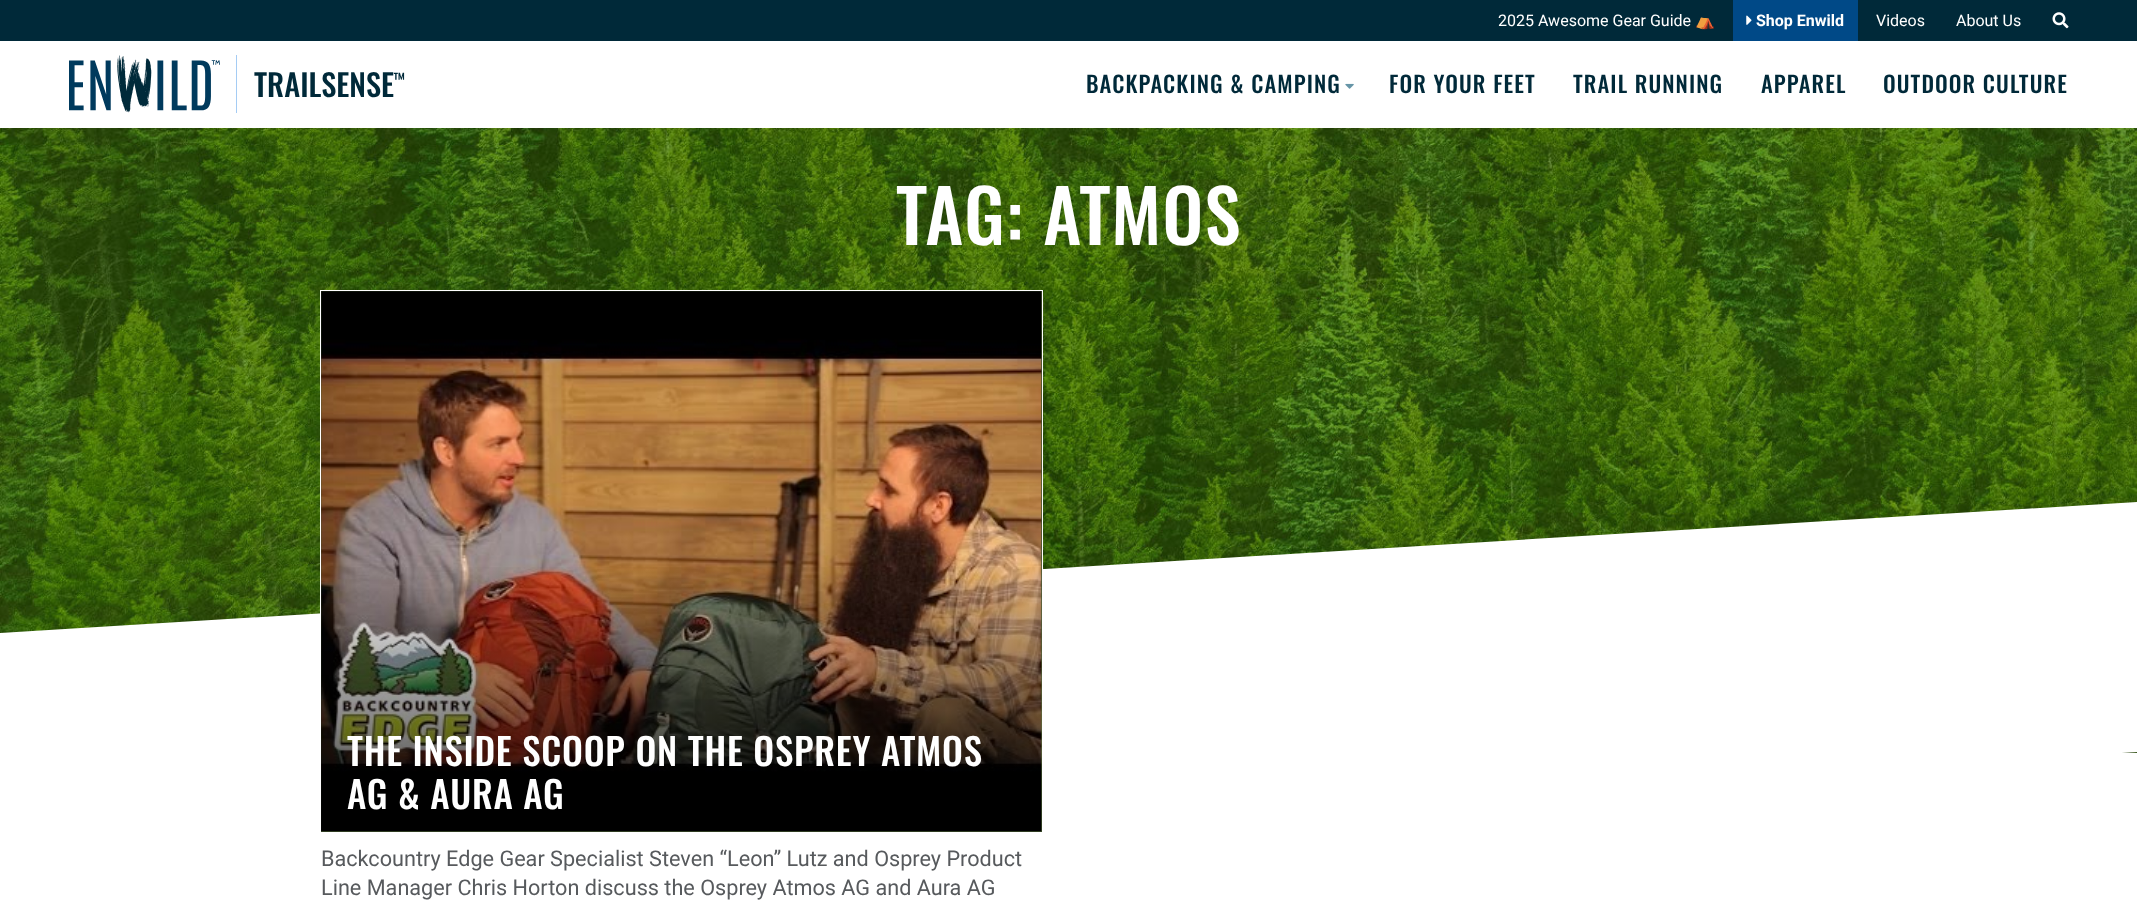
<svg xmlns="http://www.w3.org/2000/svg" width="2137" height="916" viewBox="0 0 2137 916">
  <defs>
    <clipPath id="clip1"><rect x="0" y="128" width="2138" height="625"/></clipPath>
    <linearGradient id="g1" gradientUnits="userSpaceOnUse" x1="681" y1="560" x2="681" y2="831"><stop offset="0" stop-color="#000000" stop-opacity="0"/><stop offset="1" stop-color="#000000" stop-opacity="0.8"/></linearGradient>
  </defs>
  <rect width="100%" height="100%" fill="#ffffff"/>
  <rect x="236" y="55" width="1" height="58" fill="#a5ccf4"/>
  <image x="69" y="55" width="151" height="58" href="img1.png"/>
  <text x="254" y="97" font-family="Oswald" font-size="30.5" font-weight="500" fill="#002939">TRAILSENSE</text>
  <text x="393" y="85" font-family="Oswald" font-size="15" font-weight="500" fill="#002939">™</text>
  <rect x="0" y="0" width="2137" height="41" fill="#002939"/>
  <text x="1498" y="26" font-family="Roboto" font-size="16" fill="#ffffff">2025 Awesome Gear Guide</text>
  <text x="1695" y="26" font-family="Noto Color Emoji" font-size="16" fill="#ffffff">⛺</text>
  <rect x="1733" y="0" width="125" height="41" fill="#004987"/>
  <image x="1746" y="15" width="6" height="10" href="img2.png"/>
  <text x="1756" y="26" font-family="Roboto" font-size="16" font-weight="bold" fill="#ffffff">Shop Enwild</text>
  <text x="1876" y="26" font-family="Roboto" font-size="16" fill="#ffffff">Videos</text>
  <text x="1956" y="26" font-family="Roboto" font-size="16" fill="#ffffff">About Us</text>
  <image x="2052" y="12" width="17" height="17" href="img3.png"/>
  <text x="1086" y="93" font-family="Oswald" font-size="22.5" font-weight="500" letter-spacing="1.1" fill="#002939">BACKPACKING &amp; CAMPING</text>
  <image x="1345" y="83" width="9" height="6" href="img4.png"/>
  <text x="1389" y="93" font-family="Oswald" font-size="22.5" font-weight="500" letter-spacing="1.1" fill="#002939">FOR YOUR FEET</text>
  <text x="1573" y="93" font-family="Oswald" font-size="22.5" font-weight="500" letter-spacing="1.1" fill="#002939">TRAIL RUNNING</text>
  <text x="1761" y="93" font-family="Oswald" font-size="22.5" font-weight="500" letter-spacing="1.1" fill="#002939">APPAREL</text>
  <text x="1883" y="93" font-family="Oswald" font-size="22.5" font-weight="500" letter-spacing="1.1" fill="#002939">OUTDOOR CULTURE</text>
  <rect x="2122" y="752" width="15" height="1" fill="#3f512c"/>
  <image x="0" y="128" width="2137" height="625" href="img5.png"/>
  <g clip-path="url(#clip1)">
    <path d="M0 633L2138 502V752L0 883Z" fill="#ffffff"/>
  </g>
  <text x="896" y="245" font-family="Oswald" font-size="73" font-weight="500" letter-spacing="1.1" fill="#ffffff">TAG: ATMOS</text>
  <rect x="320.5" y="290.5" width="722" height="542" fill="#3f512c" stroke="#ffffff"/>
  <image x="321" y="291" width="721" height="541" href="img6.png"/>
  <rect x="321" y="567" width="720" height="264" fill="url(#g1)"/>
  <text x="347" y="766" font-family="Oswald" font-size="37.1" font-weight="500" letter-spacing="0.75" fill="#ffffff">THE INSIDE SCOOP ON THE OSPREY ATMOS</text>
  <text x="347" y="809" font-family="Oswald" font-size="37.1" font-weight="500" letter-spacing="0.75" fill="#ffffff">AG &amp; AURA AG</text>
  <text x="321" y="866" font-family="Roboto" font-size="21.65" fill="#575a5d">Backcountry Edge Gear Specialist Steven “Leon” Lutz and Osprey Product</text>
  <text x="321" y="895" font-family="Roboto" font-size="21.65" fill="#575a5d">Line Manager Chris Horton discuss the Osprey Atmos AG and Aura AG</text>
</svg>
